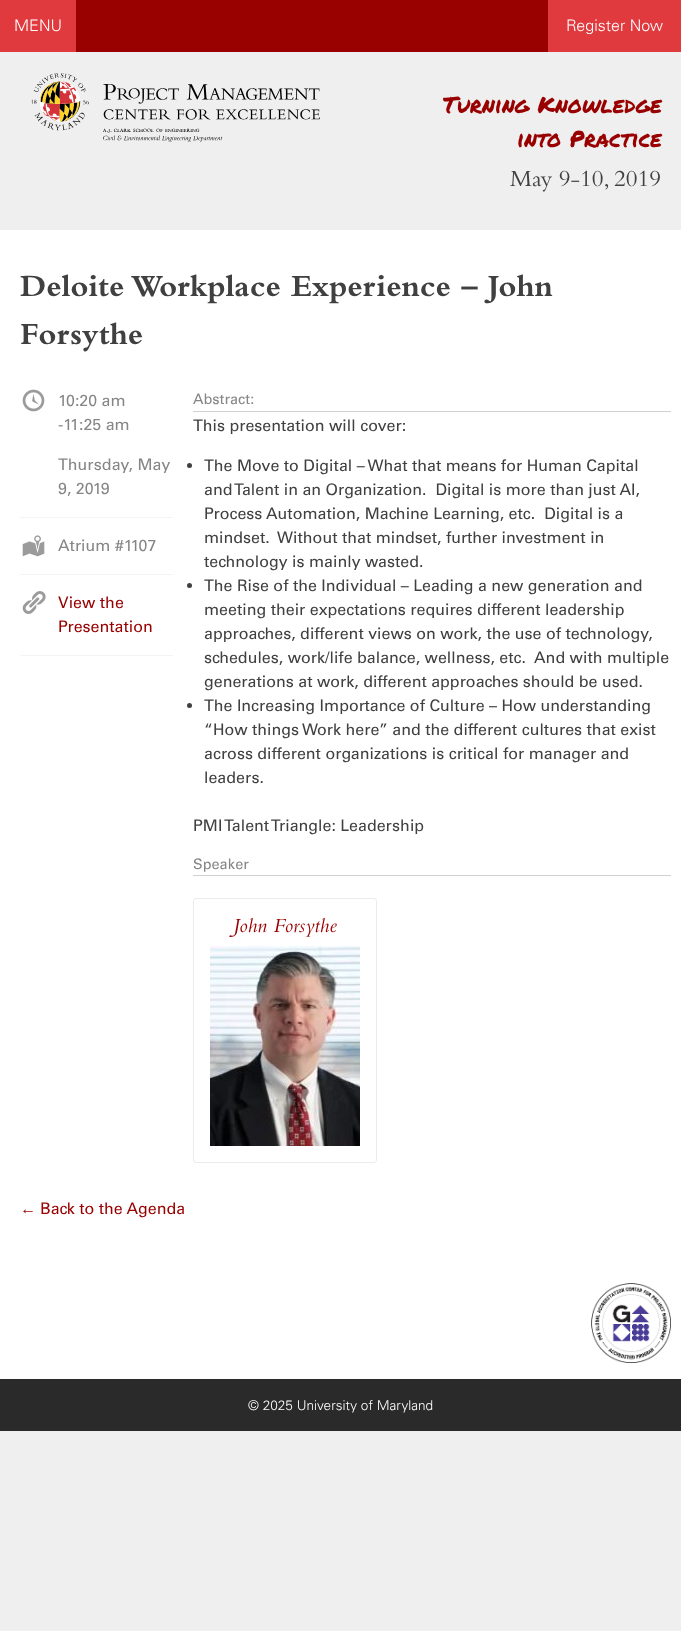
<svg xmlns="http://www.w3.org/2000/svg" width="681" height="1631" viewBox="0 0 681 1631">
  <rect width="100%" height="100%" fill="#efefef"/>
  <rect x="76" y="0" width="472" height="52" fill="#990000"/>
  <rect x="0" y="0" width="76" height="52" fill="#e03a3e"/>
  <text x="14" y="31" font-family="Univers" font-size="16" font-weight="300" fill="#ffffff">MENU</text>
  <rect x="548" y="0" width="133" height="52" fill="#e03a3e"/>
  <text x="566" y="31" font-family="Univers" font-size="16" font-weight="300" fill="#ffffff">Register Now</text>
  <image x="31" y="73" width="289" height="69" href="img1.png"/>
  <text x="443" y="113" font-family="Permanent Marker" font-size="22.5" fill="#990000">Turning Knowledge</text>
  <text x="517" y="147" font-family="Permanent Marker" font-size="22.5" fill="#990000">into Practice</text>
  <text x="510" y="186" font-family="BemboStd" font-size="24" fill="#404040">May 9-10, 2019</text>
  <rect x="0" y="230" width="681" height="1149" fill="#ffffff"/>
  <text x="20" y="296" font-family="BemboStd" font-size="32" font-weight="bold" fill="#404040">Deloite Workplace Experience – John</text>
  <text x="20" y="344" font-family="BemboStd" font-size="32" font-weight="bold" fill="#404040">Forsythe</text>
  <rect x="20" y="517" width="153" height="1" fill="#f4f4f4"/>
  <image x="22" y="389" width="23" height="23" href="img2.png"/>
  <text x="58" y="406" font-family="Univers" font-size="16" fill="#868686">10:20 am</text>
  <text x="58" y="430" font-family="Univers" font-size="16" fill="#868686">-11:25 am</text>
  <text x="58" y="470" font-family="Univers" font-size="16" fill="#868686">Thursday, May</text>
  <text x="58" y="494" font-family="Univers" font-size="16" fill="#868686">9, 2019</text>
  <rect x="20" y="574" width="153" height="1" fill="#f4f4f4"/>
  <image x="22" y="535" width="23" height="22" href="img3.png"/>
  <text x="58" y="551" font-family="Univers" font-size="16" fill="#868686">Atrium #1107</text>
  <rect x="20" y="655" width="153" height="1" fill="#f4f4f4"/>
  <image x="22" y="591" width="24" height="23" href="img4.png"/>
  <text x="58" y="608" font-family="Univers" font-size="16" fill="#990000">View the</text>
  <text x="58" y="632" font-family="Univers" font-size="16" fill="#990000">Presentation</text>
  <rect x="193" y="411" width="478" height="1" fill="#d0d0d0"/>
  <text x="193" y="404" font-family="Univers" font-size="14.5" fill="#868686">Abstract:</text>
  <text x="193" y="431" font-family="Univers" font-size="16" fill="#404040">This presentation will cover:</text>
  <circle cx="189.5" cy="465.5" r="2.5" fill="#404040"/>
  <text x="204" y="471" font-family="Univers" font-size="16" fill="#404040">The Move to Digital – What that means for Human Capital</text>
  <text x="204" y="495" font-family="Univers" font-size="16" fill="#404040" xml:space="preserve">and Talent in an Organization.  Digital is more than just AI,</text>
  <text x="204" y="519" font-family="Univers" font-size="16" fill="#404040" xml:space="preserve">Process Automation, Machine Learning, etc.  Digital is a</text>
  <text x="204" y="543" font-family="Univers" font-size="16" fill="#404040" xml:space="preserve">mindset.  Without that mindset, further investment in</text>
  <text x="204" y="567" font-family="Univers" font-size="16" fill="#404040">technology is mainly wasted.</text>
  <circle cx="189.5" cy="585.5" r="2.5" fill="#404040"/>
  <text x="204" y="591" font-family="Univers" font-size="16" fill="#404040">The Rise of the Individual – Leading a new generation and</text>
  <text x="204" y="615" font-family="Univers" font-size="16" fill="#404040">meeting their expectations requires different leadership</text>
  <text x="204" y="639" font-family="Univers" font-size="16" fill="#404040">approaches, different views on work, the use of technology,</text>
  <text x="204" y="663" font-family="Univers" font-size="16" fill="#404040" xml:space="preserve">schedules, work/life balance, wellness, etc.  And with multiple</text>
  <text x="204" y="687" font-family="Univers" font-size="16" fill="#404040">generations at work, different approaches should be used.</text>
  <circle cx="189.5" cy="705.5" r="2.5" fill="#404040"/>
  <text x="204" y="711" font-family="Univers" font-size="16" fill="#404040">The Increasing Importance of Culture – How understanding</text>
  <text x="204" y="735" font-family="Univers" font-size="16" fill="#404040">“How things Work here” and the different cultures that exist</text>
  <text x="204" y="759" font-family="Univers" font-size="16" fill="#404040">across different organizations is critical for manager and</text>
  <text x="204" y="783" font-family="Univers" font-size="16" fill="#404040">leaders.</text>
  <text x="193" y="831" font-family="Univers" font-size="16" fill="#404040">PMI Talent Triangle: Leadership</text>
  <rect x="193" y="875" width="478" height="1" fill="#d0d0d0"/>
  <text x="193" y="869" font-family="Univers" font-size="14.5" fill="#868686">Speaker</text>
  <rect x="193.5" y="898.5" width="183" height="264" rx="2.5" fill="none" stroke="#ebebeb"/>
  <text x="233" y="932" font-family="BemboStd" font-size="21" font-style="italic" fill="#990000">John Forsythe</text>
  <image x="210" y="946" width="150" height="200" href="img5.png"/>
  <text x="20" y="1214" font-family="Liberation Sans" font-size="16" fill="#990000">←</text>
  <text x="40" y="1214" font-family="Univers" font-size="16" fill="#990000">Back to the Agenda</text>
  <image x="591" y="1283" width="80" height="80" href="img6.png"/>
  <rect x="0" y="1379" width="681" height="52" fill="#2a2a2a"/>
  <text x="248" y="1410" font-family="Univers" font-size="13.6" font-weight="300" fill="#ffffff">© 2025 University of Maryland</text>
</svg>
